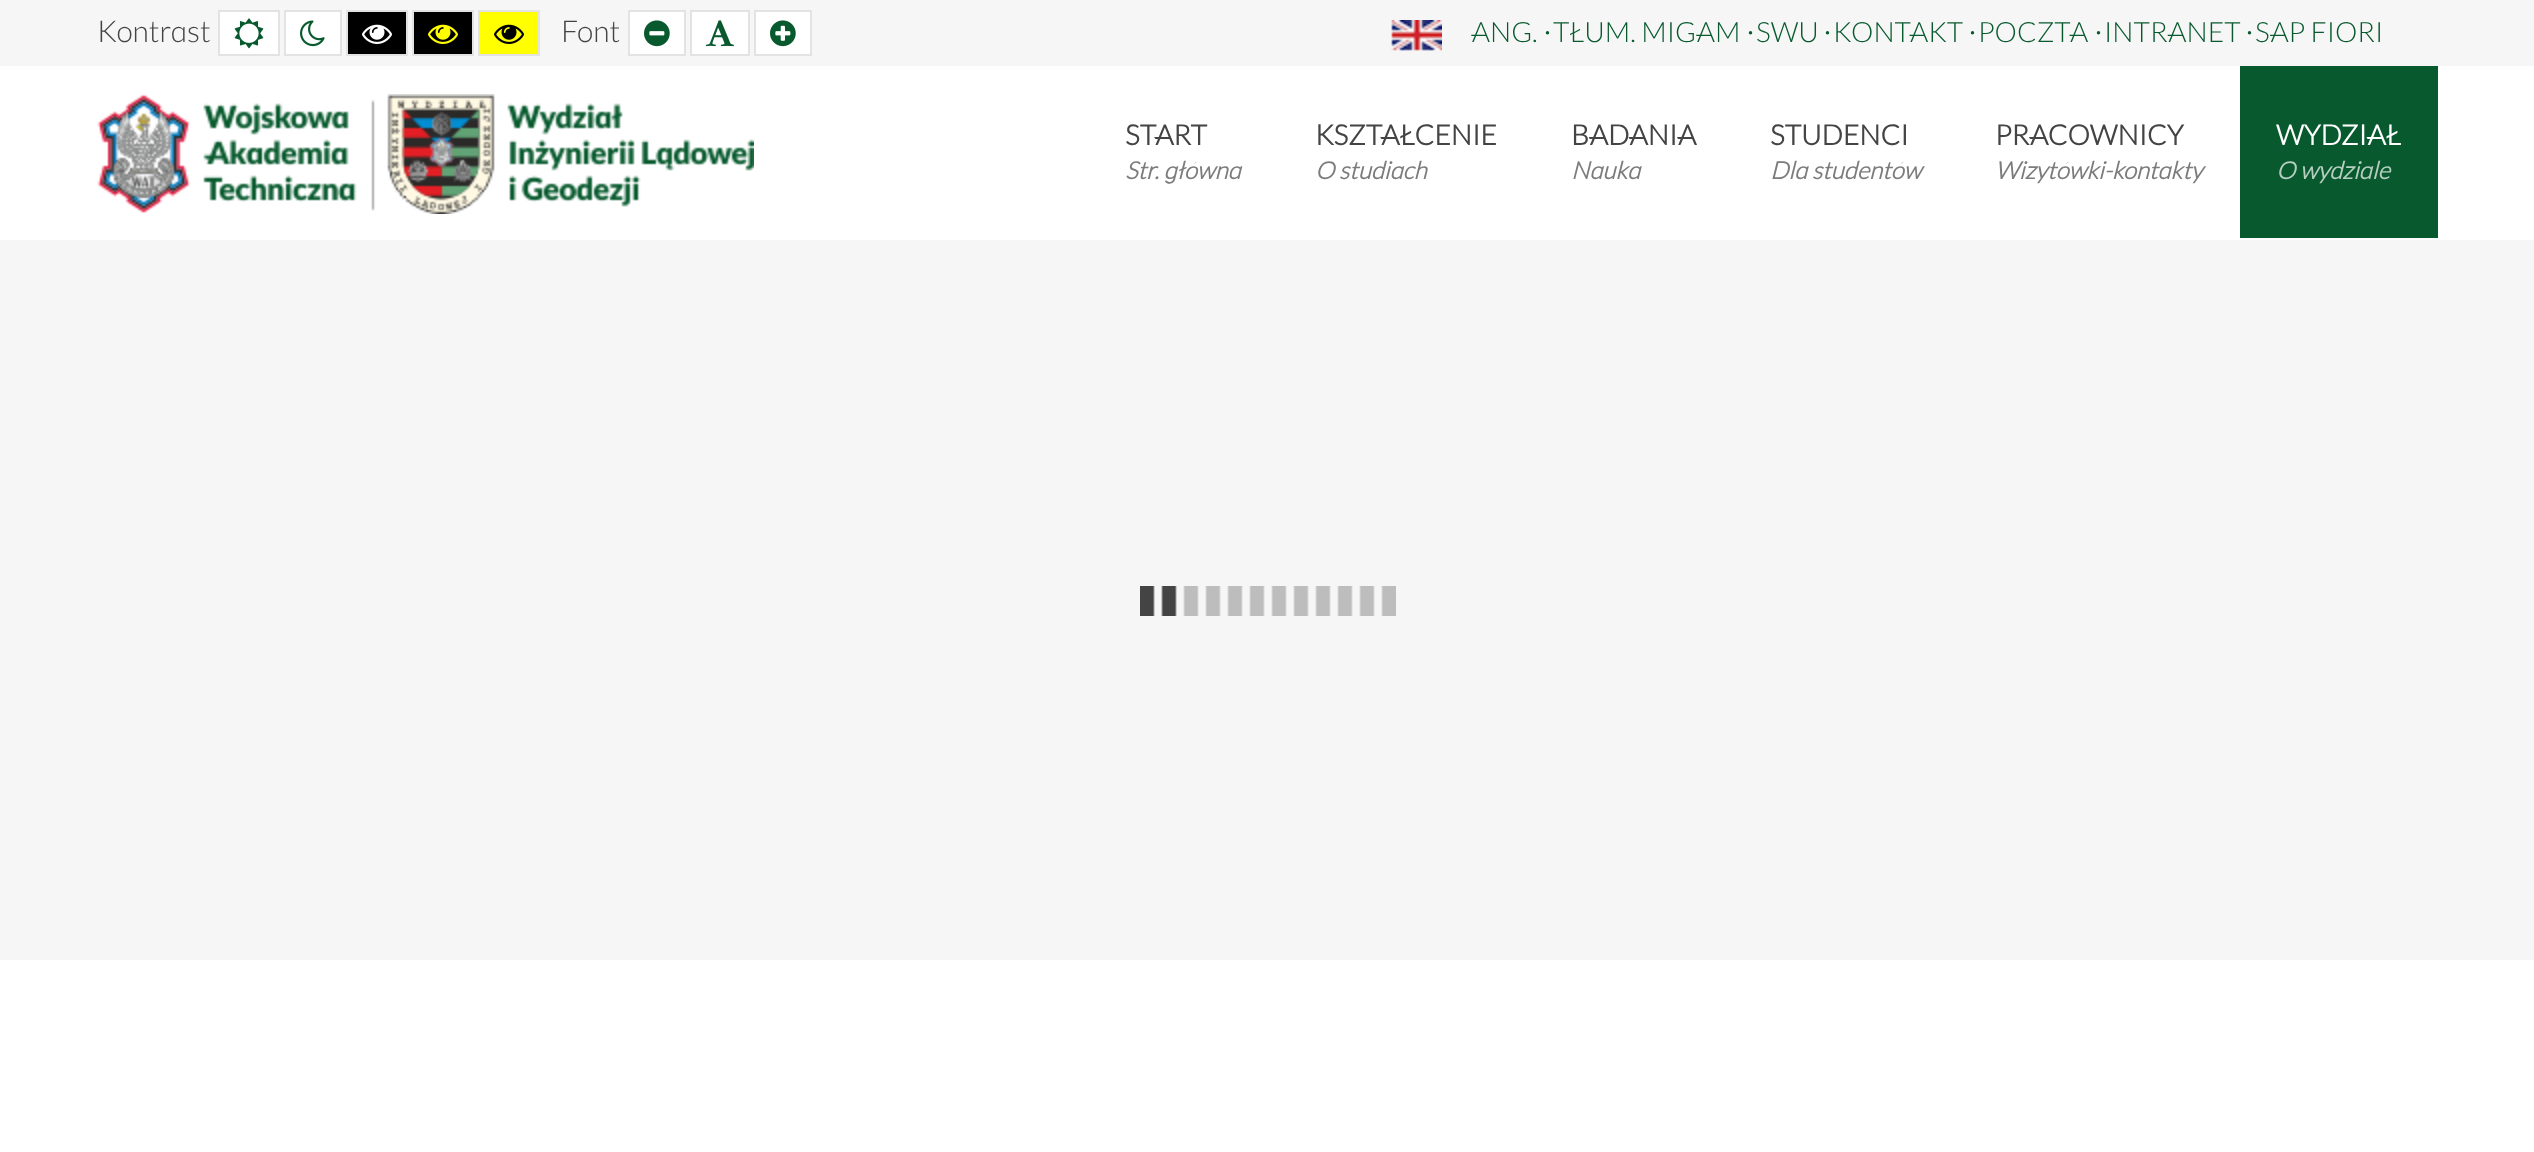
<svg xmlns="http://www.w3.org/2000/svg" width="2534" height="1152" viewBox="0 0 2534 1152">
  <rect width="100%" height="100%" fill="#ffffff"/>
  <rect x="0" y="0" width="2534" height="66" fill="#f6f6f6"/>
  <text x="97" y="42" font-family="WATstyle" font-size="30" font-weight="300" fill="#444444">Kontrast</text>
  <rect x="219" y="11" width="60" height="44" fill="#ffffff" stroke="#e3e3e3" stroke-width="2"/>
  <image x="234" y="18" width="30" height="31" href="img1.png"/>
  <rect x="285" y="11" width="56" height="44" fill="#ffffff" stroke="#e3e3e3" stroke-width="2"/>
  <image x="300" y="20" width="25" height="27" href="img2.png"/>
  <rect x="347" y="11" width="60" height="44" fill="#000000" stroke="#e3e3e3" stroke-width="2"/>
  <image x="362" y="24" width="30" height="20" href="img3.png"/>
  <rect x="413" y="11" width="60" height="44" fill="#000000" stroke="#e3e3e3" stroke-width="2"/>
  <image x="428" y="24" width="30" height="20" href="img4.png"/>
  <rect x="479" y="11" width="60" height="44" fill="#ffff00" stroke="#e3e3e3" stroke-width="2"/>
  <image x="494" y="24" width="30" height="20" href="img5.png"/>
  <text x="561" y="42" font-family="WATstyle" font-size="30" font-weight="300" fill="#444444">Font</text>
  <rect x="629" y="11" width="56" height="44" fill="#ffffff" stroke="#e3e3e3" stroke-width="2"/>
  <image x="644" y="20" width="26" height="27" href="img6.png"/>
  <rect x="691" y="11" width="58" height="44" fill="#ffffff" stroke="#e3e3e3" stroke-width="2"/>
  <image x="706" y="20" width="28" height="27" href="img7.png"/>
  <rect x="755" y="11" width="56" height="44" fill="#ffffff" stroke="#e3e3e3" stroke-width="2"/>
  <image x="770" y="20" width="26" height="27" href="img8.png"/>
  <image x="1391" y="20" width="51" height="31" href="img9.png"/>
  <text x="1471" y="42" font-family="WATstyle" font-size="28" font-weight="300" fill="#085a2e">ANG.</text>
  <text x="1544" y="42" font-family="Liberation Serif" font-size="28" fill="#085a2e">∙</text>
  <text x="1553" y="42" font-family="WATstyle" font-size="28" font-weight="300" fill="#085a2e">TŁUM. MIGAM</text>
  <text x="1747" y="42" font-family="Liberation Serif" font-size="28" fill="#085a2e">∙</text>
  <text x="1756" y="42" font-family="WATstyle" font-size="28" font-weight="300" fill="#085a2e">SWU</text>
  <text x="1824" y="42" font-family="Liberation Serif" font-size="28" fill="#085a2e">∙</text>
  <text x="1833" y="42" font-family="WATstyle" font-size="28" font-weight="300" fill="#085a2e">KONTAKT</text>
  <text x="1969" y="42" font-family="Liberation Serif" font-size="28" fill="#085a2e">∙</text>
  <text x="1978" y="42" font-family="WATstyle" font-size="28" font-weight="300" fill="#085a2e">POCZTA</text>
  <text x="2095" y="42" font-family="Liberation Serif" font-size="28" fill="#085a2e">∙</text>
  <text x="2104" y="42" font-family="WATstyle" font-size="28" font-weight="300" fill="#085a2e">INTRANET</text>
  <text x="2246" y="42" font-family="Liberation Serif" font-size="28" fill="#085a2e">∙</text>
  <text x="2255" y="42" font-family="WATstyle" font-size="28" font-weight="300" fill="#085a2e">SAP FIORI</text>
  <image x="97" y="94" width="657" height="120" href="img10.png"/>
  <text x="1125" y="145" font-family="WATstyle" font-size="28" font-weight="bold" fill="#444444">START</text>
  <text x="1125" y="179" font-family="WATstyle" font-size="24" font-weight="bold" font-style="italic" fill="#7c7c7c">Str. główna</text>
  <text x="1315" y="145" font-family="WATstyle" font-size="28" font-weight="bold" fill="#444444">KSZTAŁCENIE</text>
  <text x="1315" y="179" font-family="WATstyle" font-size="24" font-weight="bold" font-style="italic" fill="#7c7c7c">O studiach</text>
  <text x="1571" y="145" font-family="WATstyle" font-size="28" font-weight="bold" fill="#444444">BADANIA</text>
  <text x="1571" y="179" font-family="WATstyle" font-size="24" font-weight="bold" font-style="italic" fill="#7c7c7c">Nauka</text>
  <text x="1770" y="145" font-family="WATstyle" font-size="28" font-weight="bold" fill="#444444">STUDENCI</text>
  <text x="1770" y="179" font-family="WATstyle" font-size="24" font-weight="bold" font-style="italic" fill="#7c7c7c">Dla studentów</text>
  <text x="1995" y="145" font-family="WATstyle" font-size="28" font-weight="bold" fill="#444444">PRACOWNICY</text>
  <text x="1995" y="179" font-family="WATstyle" font-size="24" font-weight="bold" font-style="italic" fill="#7c7c7c">Wizytówki-kontakty</text>
  <rect x="2240" y="66" width="198" height="172" fill="#085a2e"/>
  <text x="2276" y="145" font-family="WATstyle" font-size="28" font-weight="bold" fill="#ffffff">WYDZIAŁ</text>
  <text x="2276" y="179" font-family="WATstyle" font-size="24" font-weight="bold" font-style="italic" fill="#b5cec0">O wydziale</text>
  <rect x="0" y="240" width="2534" height="720" fill="#f6f6f6"/>
  <image x="1140" y="586" width="256" height="30" href="img11.png"/>
</svg>
